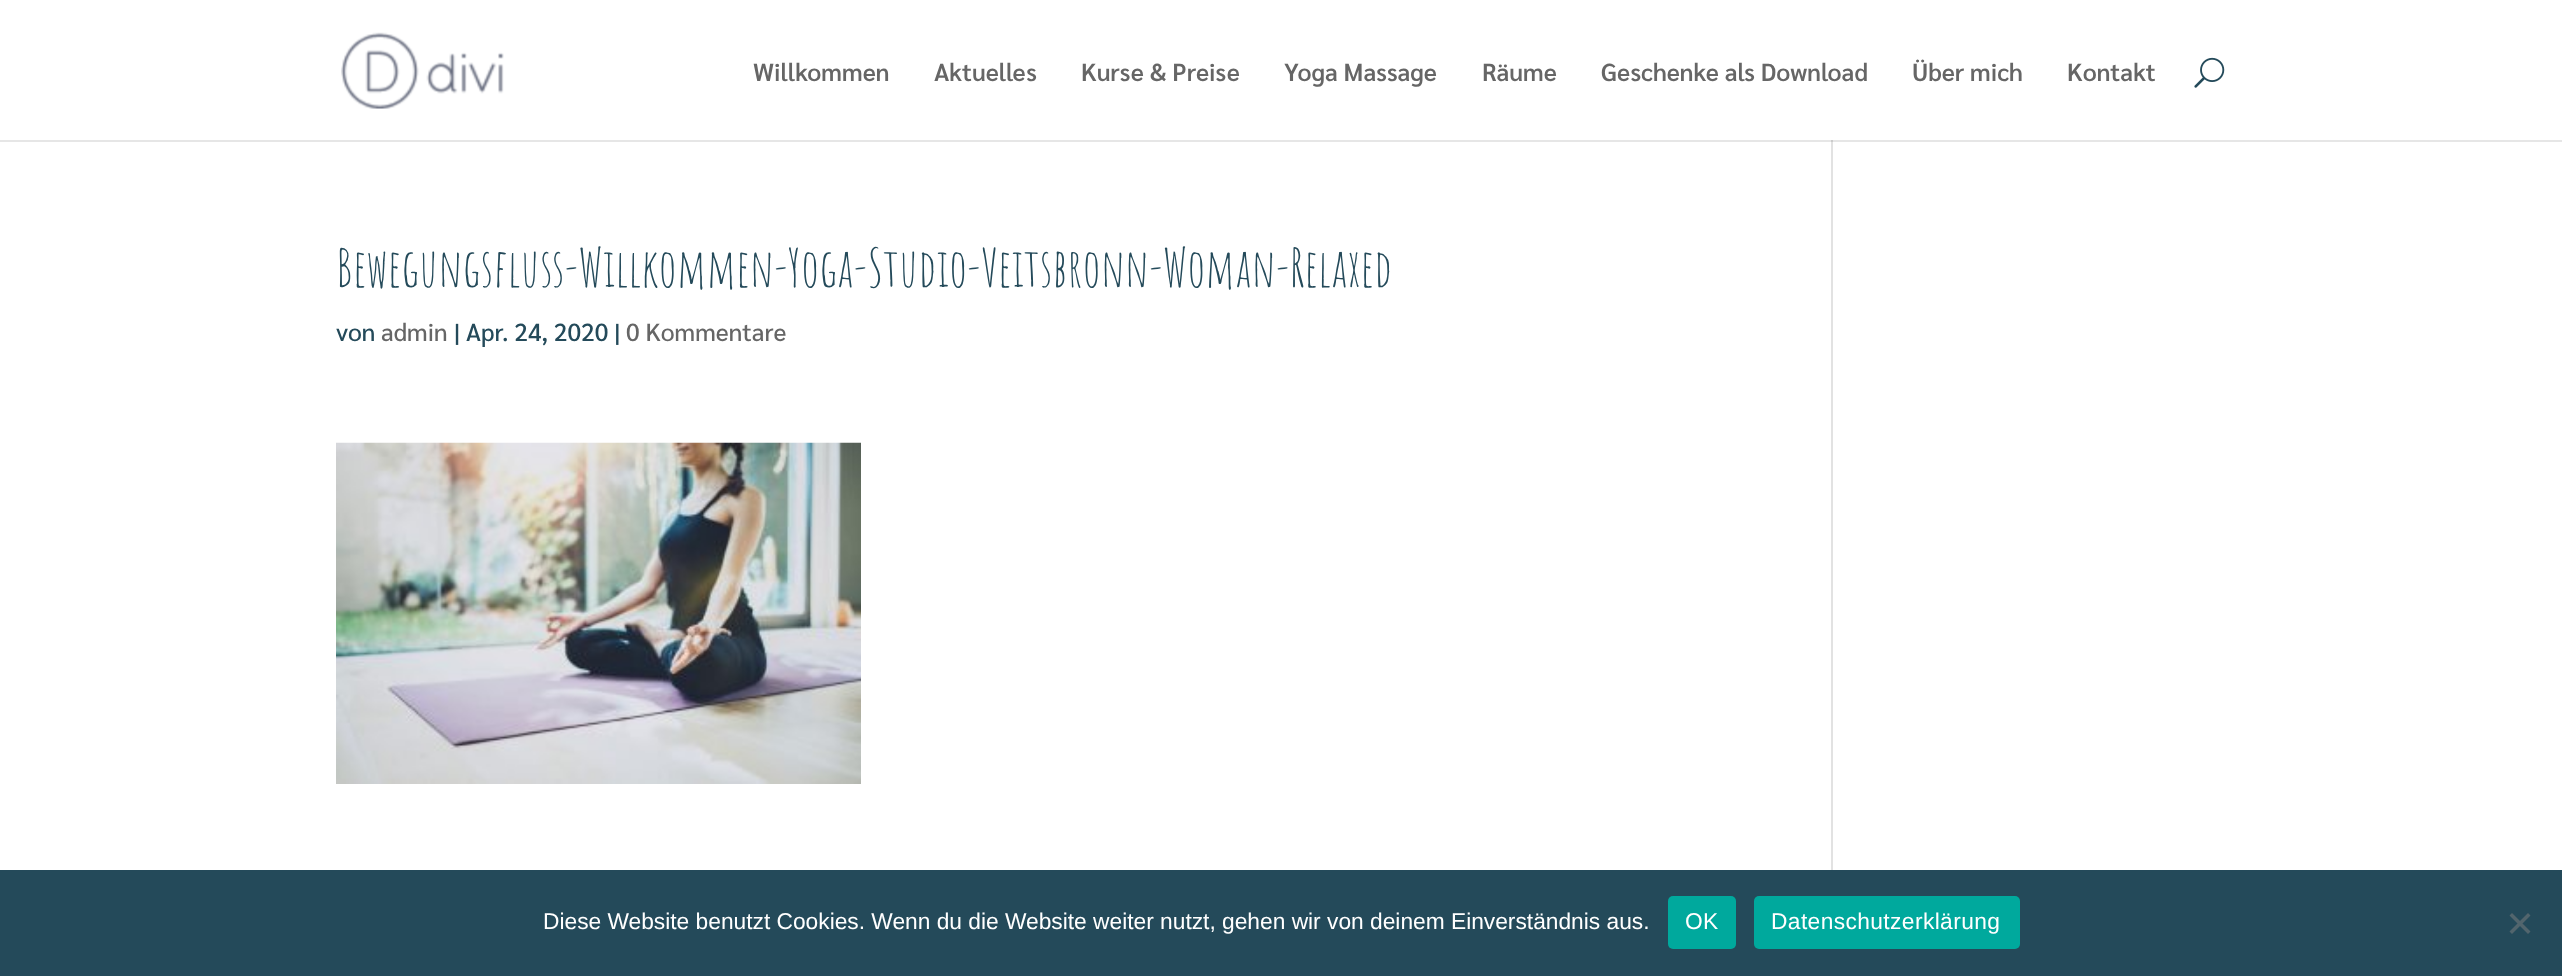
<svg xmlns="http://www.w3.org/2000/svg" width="2562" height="976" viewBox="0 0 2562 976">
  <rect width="100%" height="100%" fill="#ffffff"/>
  <rect x="0" y="140" width="2562" height="2" fill="#e6e6e6"/>
  <image x="341" y="32" width="163" height="77" href="img1.png"/>
  <text x="753" y="81" font-family="Sarabun" font-size="24.5" font-weight="600" fill="#666666">Willkommen</text>
  <text x="934" y="81" font-family="Sarabun" font-size="24.5" font-weight="600" fill="#666666">Aktuelles</text>
  <text x="1081" y="81" font-family="Sarabun" font-size="24.5" font-weight="600" fill="#666666">Kurse &amp; Preise</text>
  <text x="1284" y="81" font-family="Sarabun" font-size="24.5" font-weight="600" fill="#666666">Yoga Massage</text>
  <text x="1482" y="81" font-family="Sarabun" font-size="24.5" font-weight="600" fill="#666666">Räume</text>
  <text x="1601" y="81" font-family="Sarabun" font-size="24.5" font-weight="600" fill="#666666">Geschenke als Download</text>
  <text x="1912" y="81" font-family="Sarabun" font-size="24.5" font-weight="600" fill="#666666">Über mich</text>
  <text x="2067" y="81" font-family="Sarabun" font-size="24.5" font-weight="600" fill="#666666">Kontakt</text>
  <image x="2194" y="57" width="31" height="31" href="img2.png"/>
  <text x="336" y="287" font-family="Amatic SC" font-size="52.5" fill="#244a5a">Bewegungsfluss-Willkommen-Yoga-Studio-Veitsbronn-Woman-Relaxed</text>
  <text x="336" y="341" font-family="Sarabun" font-size="24.5" font-weight="500" fill="#244a5a">von</text>
  <text x="381" y="341" font-family="Sarabun" font-size="24.5" font-weight="500" fill="#666666">admin</text>
  <text x="454" y="341" font-family="Sarabun" font-size="24.5" font-weight="500" fill="#244a5a">| Apr. 24, 2020 |</text>
  <text x="626" y="341" font-family="Sarabun" font-size="24.5" font-weight="500" fill="#666666">0 Kommentare</text>
  <image x="336" y="442" width="525" height="342" href="img3.png"/>
  <rect x="1831" y="140" width="2" height="732" fill="#e2e2e2"/>
  <rect x="1831" y="140" width="2" height="2" fill="#cbcbcb"/>
  <rect x="0" y="870" width="2562" height="106" fill="#244a5a"/>
  <text x="543" y="929" font-family="Liberation Sans" font-size="22.75" fill="#ffffff">Diese Website benutzt Cookies. Wenn du die Website weiter nutzt, gehen wir von deinem Einverständnis aus.</text>
  <rect x="1668" y="896" width="68" height="53" rx="5" fill="#00a99d"/>
  <text x="1685" y="929" font-family="Liberation Sans" font-size="22.75" letter-spacing="0.4" fill="#ffffff">OK</text>
  <rect x="1754" y="896" width="266" height="53" rx="5" fill="#00a99d"/>
  <text x="1771" y="929" font-family="Liberation Sans" font-size="22.75" letter-spacing="0.4" fill="#ffffff">Datenschutzerklärung</text>
  <path d="M2528 913L2530.5 915.5L2512 934L2509.5 931.5Z" fill="#52656d"/>
  <path d="M2509.5 915.5L2512 913L2530.5 931.5L2528 934Z" fill="#52656d"/>
</svg>
